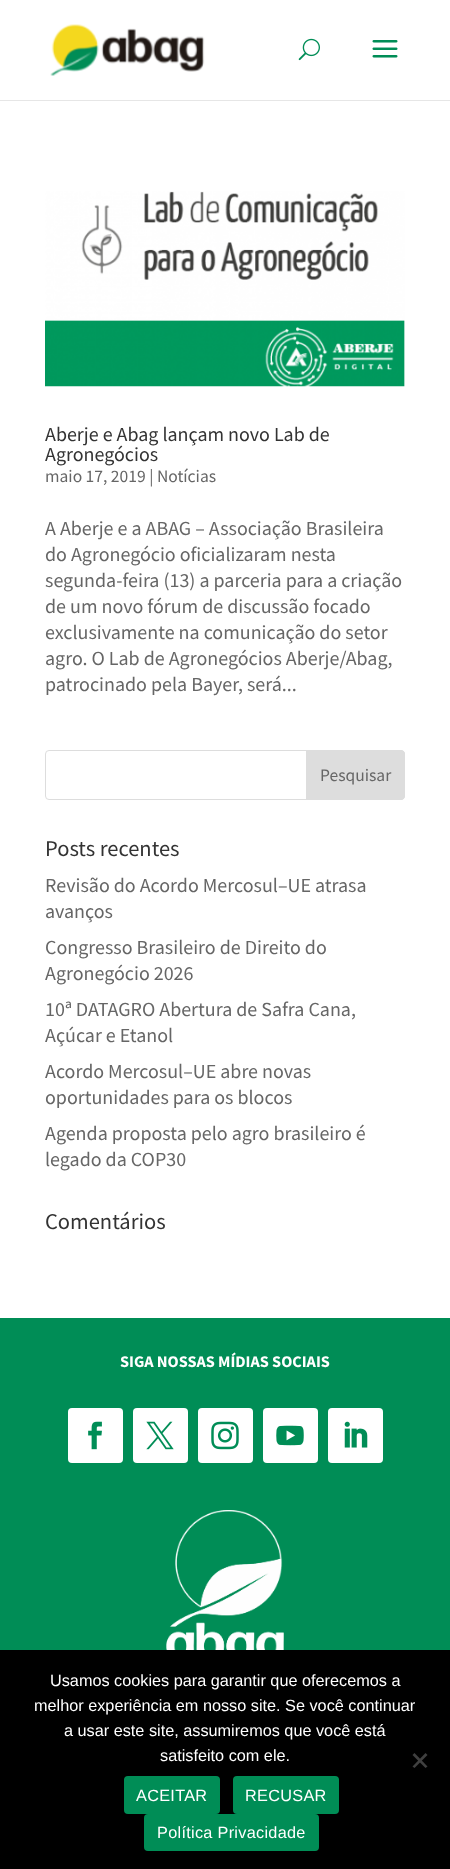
<svg xmlns="http://www.w3.org/2000/svg" width="450" height="1869" viewBox="0 0 450 1869">
  <rect width="100%" height="100%" fill="#ffffff"/>
  <rect x="0" y="100" width="450" height="1" fill="#e6e6e6"/>
  <image x="50" y="24" width="155" height="52" href="img1.png"/>
  <image x="298" y="38" width="22" height="23" href="img2.png"/>
  <image x="372" y="40" width="26" height="18" href="img3.png"/>
  <image x="45" y="191" width="360" height="196" href="img4.png"/>
  <text x="45" y="441" font-family="Source Sans Pro" font-size="20" fill="#333333">Aberje e Abag lançam novo Lab de</text>
  <text x="45" y="461" font-family="Source Sans Pro" font-size="20" fill="#333333">Agronegócios</text>
  <text x="45" y="482" font-family="Source Sans Pro" font-size="17.5" fill="#666666">maio 17, 2019 | Notícias</text>
  <text x="45" y="535" font-family="Source Sans Pro" font-size="20" fill="#666666">A Aberje e a ABAG – Associação Brasileira</text>
  <text x="45" y="561" font-family="Source Sans Pro" font-size="20" fill="#666666">do Agronegócio oficializaram nesta</text>
  <text x="45" y="587" font-family="Source Sans Pro" font-size="20" fill="#666666">segunda-feira (13) a parceria para a criação</text>
  <text x="45" y="613" font-family="Source Sans Pro" font-size="20" fill="#666666">de um novo fórum de discussão focado</text>
  <text x="45" y="639" font-family="Source Sans Pro" font-size="20" fill="#666666">exclusivamente na comunicação do setor</text>
  <text x="45" y="665" font-family="Source Sans Pro" font-size="20" fill="#666666">agro. O Lab de Agronegócios Aberje/Abag,</text>
  <text x="45" y="691" font-family="Source Sans Pro" font-size="20" fill="#666666">patrocinado pela Bayer, será...</text>
  <rect x="45.5" y="750.5" width="359" height="49" rx="3.5" fill="none" stroke="#dddddd"/>
  <path d="M306.5 750.5H401C403 750.5 404.5 752 404.5 754V796C404.5 798 403 799.5 401 799.5H306.5Z" fill="#dddddd" stroke="#dddddd"/>
  <text x="320" y="781" font-family="Source Sans Pro" font-size="17.5" fill="#666666">Pesquisar</text>
  <text x="45" y="856" font-family="Source Sans Pro" font-size="22.5" fill="#333333">Posts recentes</text>
  <text x="45" y="892" font-family="Source Sans Pro" font-size="20" fill="#666666">Revisão do Acordo Mercosul–UE atrasa</text>
  <text x="45" y="918" font-family="Source Sans Pro" font-size="20" fill="#666666">avanços</text>
  <text x="45" y="954" font-family="Source Sans Pro" font-size="20" fill="#666666">Congresso Brasileiro de Direito do</text>
  <text x="45" y="980" font-family="Source Sans Pro" font-size="20" fill="#666666">Agronegócio 2026</text>
  <text x="45" y="1016" font-family="Source Sans Pro" font-size="20" fill="#666666">10ª DATAGRO Abertura de Safra Cana,</text>
  <text x="45" y="1042" font-family="Source Sans Pro" font-size="20" fill="#666666">Açúcar e Etanol</text>
  <text x="45" y="1078" font-family="Source Sans Pro" font-size="20" fill="#666666">Acordo Mercosul–UE abre novas</text>
  <text x="45" y="1104" font-family="Source Sans Pro" font-size="20" fill="#666666">oportunidades para os blocos</text>
  <text x="45" y="1140" font-family="Source Sans Pro" font-size="20" fill="#666666">Agenda proposta pelo agro brasileiro é</text>
  <text x="45" y="1166" font-family="Source Sans Pro" font-size="20" fill="#666666">legado da COP30</text>
  <text x="45" y="1229" font-family="Source Sans Pro" font-size="22.5" fill="#333333">Comentários</text>
  <rect x="0" y="1318" width="450" height="332" fill="#008d56"/>
  <text x="120" y="1367" font-family="Source Sans Pro" font-size="16.25" font-weight="bold" fill="#ffffff">SIGA NOSSAS MÍDIAS SOCIAIS</text>
  <rect x="68" y="1408" width="55" height="55" rx="4" fill="#ffffff"/>
  <image x="88" y="1421" width="14" height="29" href="img5.png"/>
  <rect x="133" y="1408" width="55" height="55" rx="4" fill="#ffffff"/>
  <image x="146" y="1421" width="28" height="29" href="img6.png"/>
  <rect x="198" y="1408" width="55" height="55" rx="4" fill="#ffffff"/>
  <image x="211" y="1421" width="28" height="29" href="img7.png"/>
  <rect x="263" y="1408" width="55" height="55" rx="4" fill="#ffffff"/>
  <image x="276" y="1425" width="28" height="21" href="img8.png"/>
  <rect x="328" y="1408" width="55" height="55" rx="4" fill="#ffffff"/>
  <image x="344" y="1421" width="24" height="27" href="img9.png"/>
  <image x="166" y="1510" width="118" height="140" href="img10.png"/>
  <rect x="0" y="1650" width="450" height="219" fill="#000000"/>
  <text x="50" y="1686" font-family="Liberation Sans" font-size="16.25" fill="#ffffff">Usamos cookies para garantir que oferecemos a</text>
  <text x="34" y="1711" font-family="Liberation Sans" font-size="16.25" fill="#ffffff">melhor experiência em nosso site. Se você continuar</text>
  <text x="64" y="1736" font-family="Liberation Sans" font-size="16.25" fill="#ffffff">a usar este site, assumiremos que você está</text>
  <text x="160" y="1761" font-family="Liberation Sans" font-size="16.25" fill="#ffffff">satisfeito com ele.</text>
  <path d="M425.5 1753L427.5 1755L414.5 1768L412.5 1766.5Z" fill="#404040"/>
  <path d="M412.5 1755L414.5 1753L427.5 1766.5L425.5 1768Z" fill="#404040"/>
  <rect x="124" y="1776" width="96" height="38" rx="4" fill="#008d56"/>
  <text x="136" y="1801" font-family="Liberation Sans" font-size="16.25" letter-spacing="0.3" fill="#ffffff">ACEITAR</text>
  <rect x="233" y="1776" width="106" height="38" rx="4" fill="#008d56"/>
  <text x="245" y="1801" font-family="Liberation Sans" font-size="16.25" letter-spacing="0.3" fill="#ffffff">RECUSAR</text>
  <rect x="144" y="1814" width="175" height="37" rx="4" fill="#008d56"/>
  <text x="157" y="1838" font-family="Liberation Sans" font-size="16.25" letter-spacing="0.3" fill="#ffffff">Política Privacidade</text>
</svg>
